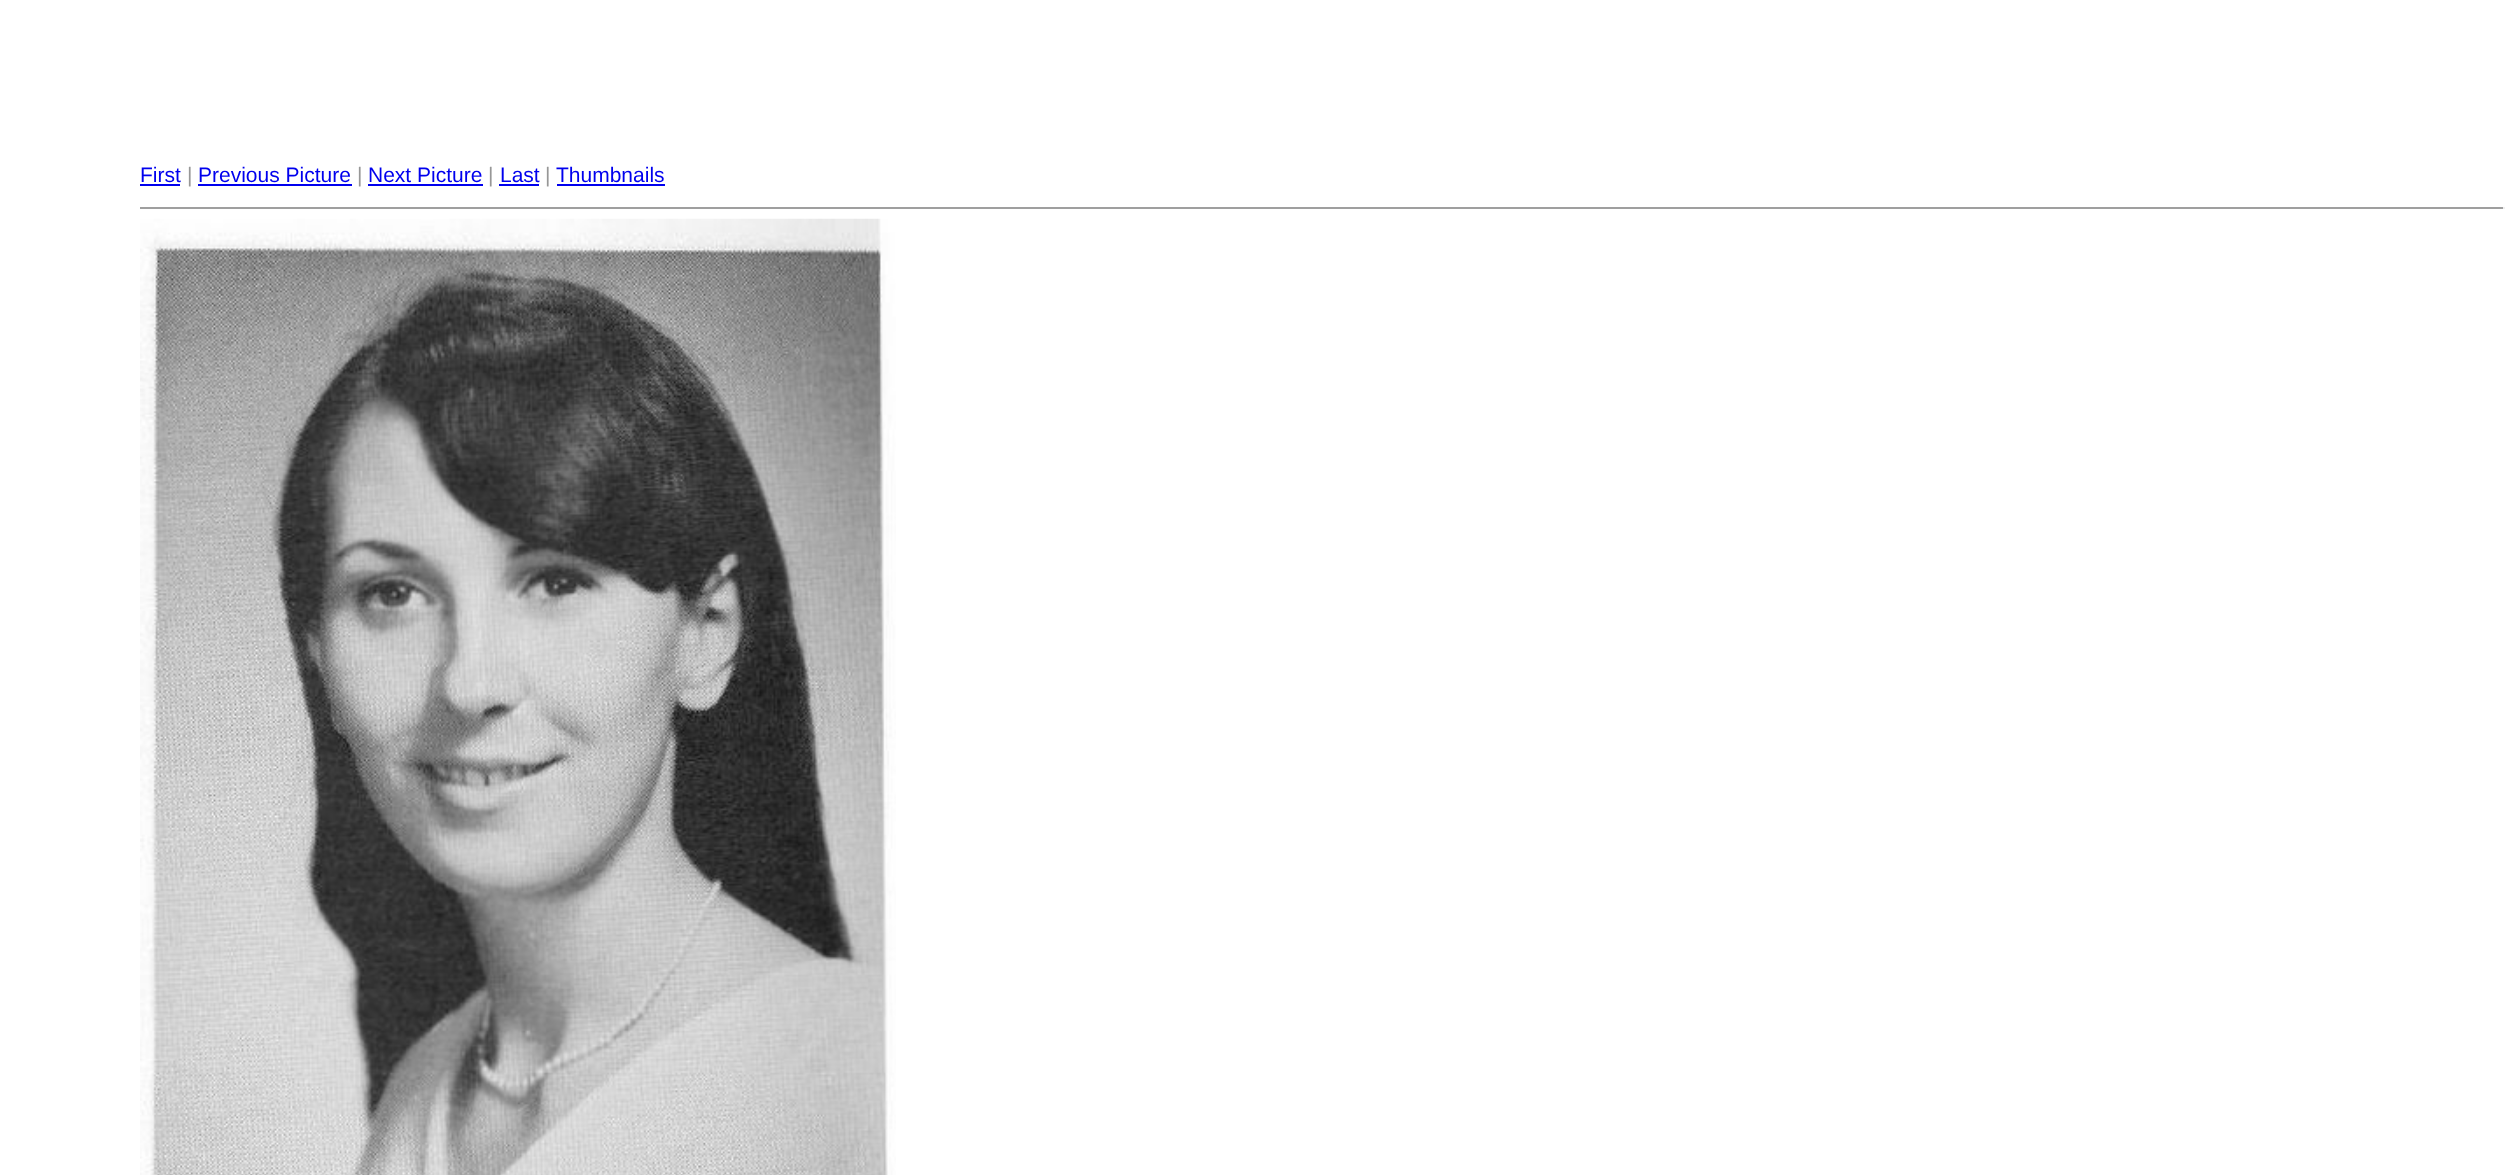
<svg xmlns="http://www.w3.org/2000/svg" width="2518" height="1175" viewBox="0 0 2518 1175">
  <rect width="100%" height="100%" fill="#ffffff"/>
  <text x="140" y="182" font-family="Liberation Sans" font-size="21" fill="#0000ee">First</text>
  <rect x="140" y="184" width="40" height="2" fill="#0000ee"/>
  <text x="187" y="182" font-family="Liberation Sans" font-size="21" fill="#979797">|</text>
  <text x="198" y="182" font-family="Liberation Sans" font-size="21" fill="#0000ee">Previous Picture</text>
  <rect x="198" y="184" width="154" height="2" fill="#0000ee"/>
  <text x="357" y="182" font-family="Liberation Sans" font-size="21" fill="#979797">|</text>
  <text x="368" y="182" font-family="Liberation Sans" font-size="21" fill="#0000ee">Next Picture</text>
  <rect x="368" y="184" width="115" height="2" fill="#0000ee"/>
  <text x="488" y="182" font-family="Liberation Sans" font-size="21" fill="#979797">|</text>
  <text x="500" y="182" font-family="Liberation Sans" font-size="21" fill="#0000ee">Last</text>
  <rect x="499" y="184" width="40" height="2" fill="#0000ee"/>
  <text x="545" y="182" font-family="Liberation Sans" font-size="21" fill="#979797">|</text>
  <text x="556" y="182" font-family="Liberation Sans" font-size="21" fill="#0000ee">Thumbnails</text>
  <rect x="557" y="184" width="108" height="2" fill="#0000ee"/>
  <rect x="140" y="207" width="2364" height="2" fill="#9f9f9f"/>
  <rect x="2503" y="207" width="2" height="2" fill="#eeeeee"/>
  <image x="140" y="218" width="756" height="957" href="img1.png"/>
</svg>
